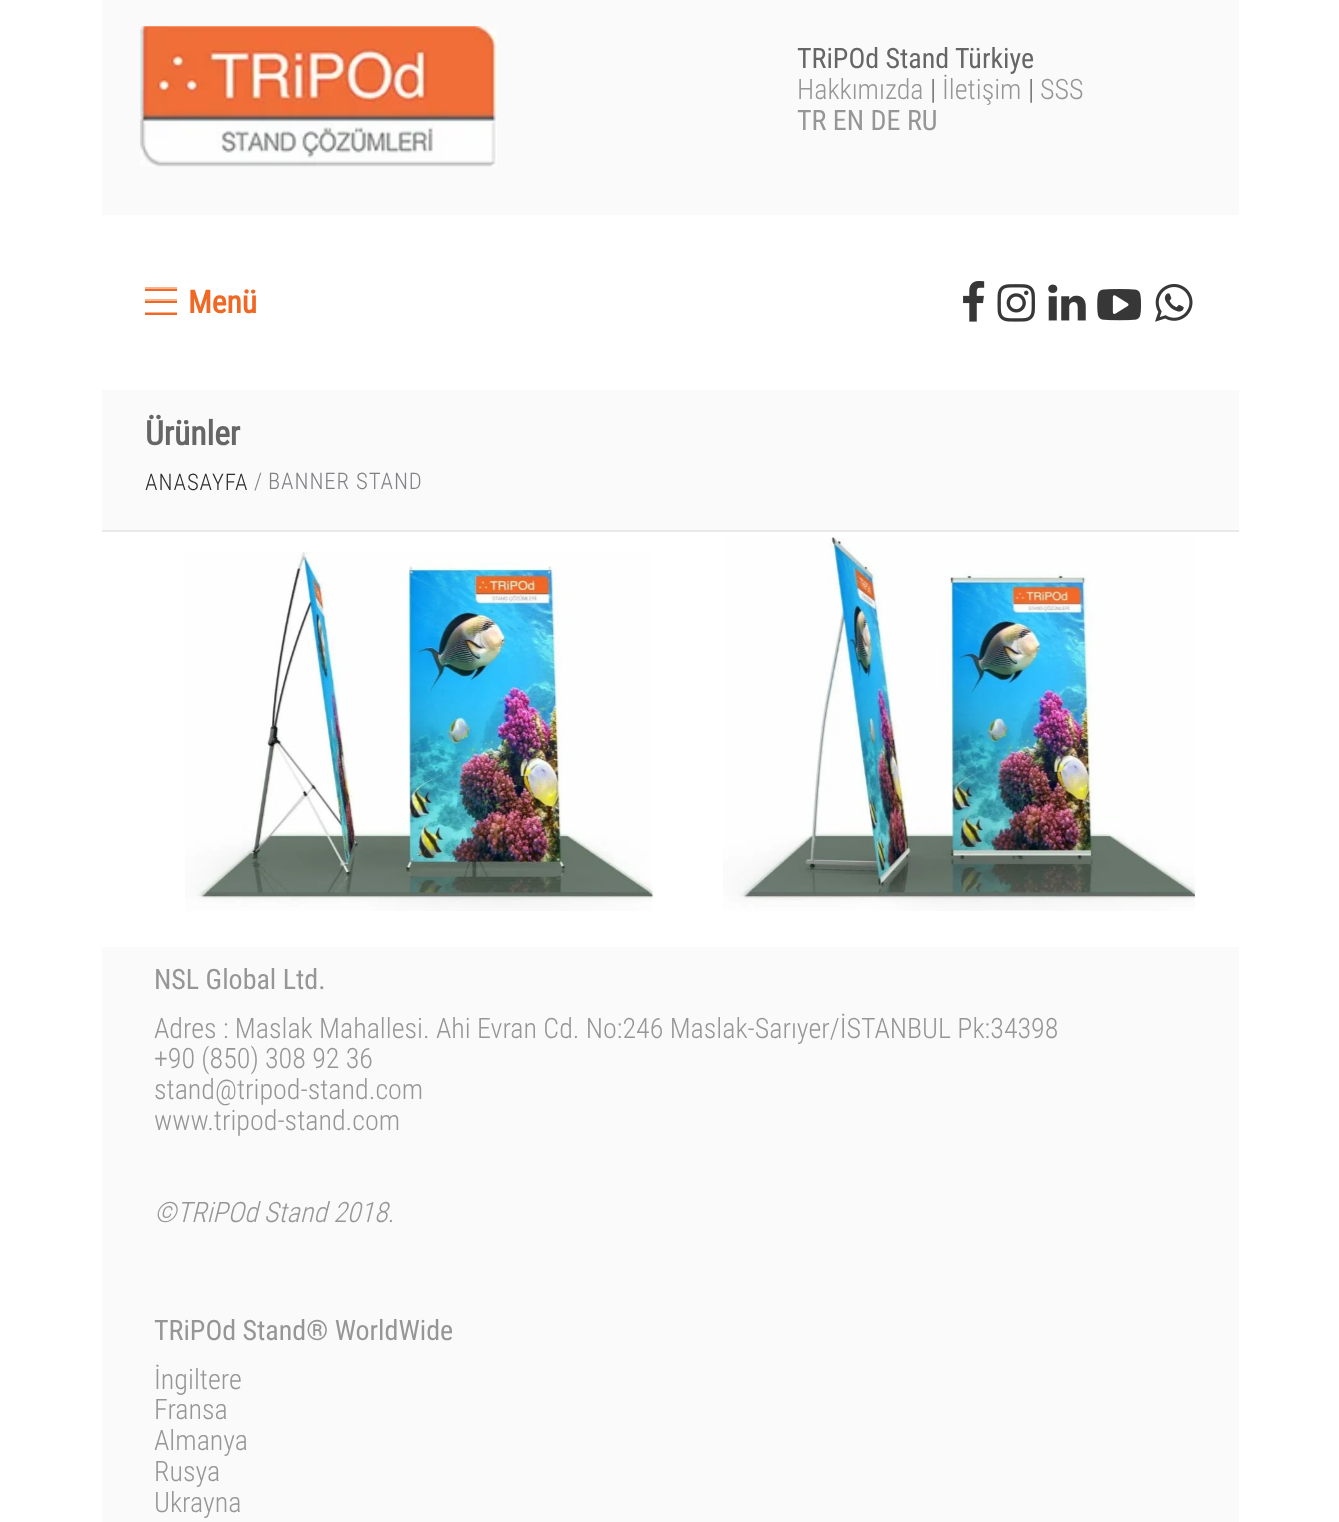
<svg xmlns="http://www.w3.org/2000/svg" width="1339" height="1522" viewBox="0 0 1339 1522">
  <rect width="100%" height="100%" fill="#ffffff"/>
  <rect x="145" y="312" width="32" height="1" fill="#f7b492"/>
  <rect x="102" y="0" width="1137" height="215" fill="#fafafa"/>
  <image x="140" y="26" width="357" height="141" href="img1.png"/>
  <text x="797" y="68" font-family="Roboto Condensed" font-size="28" fill="#666666">TRiPOd Stand Türkiye</text>
  <text x="797" y="99" font-family="Roboto Condensed" font-size="28" font-weight="300" fill="#969696">Hakkımızda</text>
  <text x="930" y="99" font-family="Roboto Condensed" font-size="28" font-weight="300" fill="#666666">|</text>
  <text x="942" y="99" font-family="Roboto Condensed" font-size="28" font-weight="300" fill="#969696">İletişim</text>
  <text x="1028" y="99" font-family="Roboto Condensed" font-size="28" font-weight="300" fill="#666666">|</text>
  <text x="1040" y="99" font-family="Roboto Condensed" font-size="28" font-weight="300" fill="#969696">SSS</text>
  <text x="797" y="130" font-family="Roboto Condensed" font-size="28" fill="#969696">TR EN DE RU</text>
  <rect x="145" y="289" width="32" height="2" fill="#ef6824"/>
  <rect x="145" y="287" width="32" height="2" fill="#f7b492"/>
  <rect x="145" y="301" width="32" height="2" fill="#ef6824"/>
  <rect x="145" y="299" width="32" height="2" fill="#f7b492"/>
  <rect x="145" y="313" width="32" height="2" fill="#ef6824"/>
  <text x="188" y="313" font-family="Roboto Condensed" font-size="31.5" font-weight="bold" fill="#ef6824">Menü</text>
  <image x="963" y="281" width="22" height="41" href="img2.png"/>
  <image x="997" y="284" width="38" height="38" href="img3.png"/>
  <image x="1048" y="284" width="38" height="37" href="img4.png"/>
  <image x="1097" y="289" width="44" height="32" href="img5.png"/>
  <image x="1155" y="284" width="38" height="38" href="img6.png"/>
  <rect x="102" y="390" width="1137" height="140" fill="#fafafa"/>
  <rect x="102" y="530" width="1137" height="2" fill="#e9e9e9"/>
  <text x="145" y="445" font-family="Roboto Condensed" font-size="33.5" font-weight="bold" fill="#666666">Ürünler</text>
  <text x="145" y="490" font-family="Roboto Condensed" font-size="22.75" font-weight="300" letter-spacing="0.9" fill="#2d2d2d">ANASAYFA</text>
  <text x="254" y="489" font-family="Roboto Condensed" font-size="22.75" font-weight="300" letter-spacing="0.9" fill="#808285">/</text>
  <text x="268" y="489" font-family="Roboto Condensed" font-size="22.75" font-weight="300" letter-spacing="0.9" fill="#808285">BANNER STAND</text>
  <image x="185" y="551" width="469" height="360" href="img7.png"/>
  <image x="723" y="537" width="472" height="374" href="img8.png"/>
  <rect x="102" y="947" width="1137" height="575" fill="#fafafa"/>
  <text x="154" y="989" font-family="Roboto Condensed" font-size="28" fill="#969696">NSL Global Ltd.</text>
  <text x="154" y="1038" font-family="Roboto Condensed" font-size="28" font-weight="300" fill="#969696">Adres : Maslak Mahallesi. Ahi Evran Cd. No:246 Maslak-Sarıyer/İSTANBUL Pk:34398</text>
  <text x="154" y="1068" font-family="Roboto Condensed" font-size="28" font-weight="300" fill="#969696">+90 (850) 308 92 36</text>
  <text x="154" y="1099" font-family="Roboto Condensed" font-size="28" font-weight="300" fill="#969696">stand@tripod-stand.com</text>
  <text x="154" y="1130" font-family="Roboto Condensed" font-size="28" font-weight="300" fill="#969696">www.tripod-stand.com</text>
  <text x="154" y="1222" font-family="Roboto Condensed" font-size="28" font-weight="300" font-style="italic" fill="#969696">©TRiPOd Stand 2018.</text>
  <text x="154" y="1340" font-family="Roboto Condensed" font-size="28" fill="#969696">TRiPOd Stand® WorldWide</text>
  <text x="154" y="1389" font-family="Roboto Condensed" font-size="28" font-weight="300" fill="#969696">İngiltere</text>
  <text x="154" y="1419" font-family="Roboto Condensed" font-size="28" font-weight="300" fill="#969696">Fransa</text>
  <text x="154" y="1450" font-family="Roboto Condensed" font-size="28" font-weight="300" fill="#969696">Almanya</text>
  <text x="154" y="1481" font-family="Roboto Condensed" font-size="28" font-weight="300" fill="#969696">Rusya</text>
  <text x="154" y="1512" font-family="Roboto Condensed" font-size="28" font-weight="300" fill="#969696">Ukrayna</text>
</svg>
